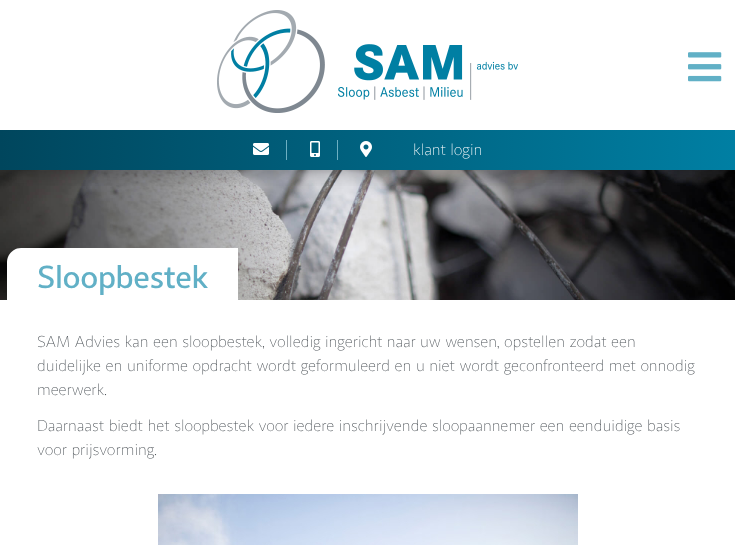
<svg xmlns="http://www.w3.org/2000/svg" width="735" height="545" viewBox="0 0 735 545">
  <defs>
    <clipPath id="clip1"><rect x="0" y="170" width="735" height="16"/></clipPath>
    <filter id="blur1" x="-50%" y="-200%" width="200%" height="500%"><feGaussianBlur stdDeviation="10"/></filter>
    <linearGradient id="g1" gradientUnits="userSpaceOnUse" x1="0" y1="150" x2="735" y2="150"><stop offset="0" stop-color="#00465d"/><stop offset="1" stop-color="#007fa3"/></linearGradient>
  </defs>
  <rect width="100%" height="100%" fill="#ffffff"/>
  <image x="0" y="170" width="735" height="130" href="img6.png"/>
  <g clip-path="url(#clip1)">
    <rect x="0" y="1" width="735" height="170" fill="#000000" fill-opacity="0.3" filter="url(#blur1)"/>
  </g>
  <image x="217" y="10" width="301" height="103" href="img1.png"/>
  <image x="688" y="52" width="34" height="30" href="img2.png"/>
  <rect x="0" y="130" width="735" height="40" fill="url(#g1)"/>
  <image x="253" y="143" width="16" height="12" href="img3.png"/>
  <rect x="286" y="140" width="1" height="20" fill="#6dafc2"/>
  <image x="310" y="141" width="10" height="16" href="img4.png"/>
  <rect x="337" y="140" width="1" height="20" fill="#6dafc2"/>
  <image x="360" y="141" width="12" height="16" href="img5.png"/>
  <text x="413" y="155" font-family="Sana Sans" font-size="16" font-weight="300" fill="#ffffff">klant login</text>
  <path d="M21 248H238V306H7V262C7 254.5 13.5 248 21 248Z" fill="#ffffff"/>
  <text x="37" y="288" font-family="Sana Sans" font-size="32" font-weight="500" fill="#61b0c6">Sloopbestek</text>
  <text x="37" y="347" font-family="Sana Sans" font-size="16" font-weight="300" fill="#51575c">SAM Advies kan een sloopbestek, volledig ingericht naar uw wensen, opstellen zodat een</text>
  <text x="37" y="371" font-family="Sana Sans" font-size="16" font-weight="300" fill="#51575c">duidelijke en uniforme opdracht wordt geformuleerd en u niet wordt geconfronteerd met onnodig</text>
  <text x="37" y="395" font-family="Sana Sans" font-size="16" font-weight="300" fill="#51575c">meerwerk.</text>
  <text x="37" y="431" font-family="Sana Sans" font-size="16" font-weight="300" fill="#51575c">Daarnaast biedt het sloopbestek voor iedere inschrijvende sloopaannemer een eenduidige basis</text>
  <text x="37" y="455" font-family="Sana Sans" font-size="16" font-weight="300" fill="#51575c">voor prijsvorming.</text>
  <image x="158" y="494" width="420" height="51" href="img7.png"/>
</svg>
